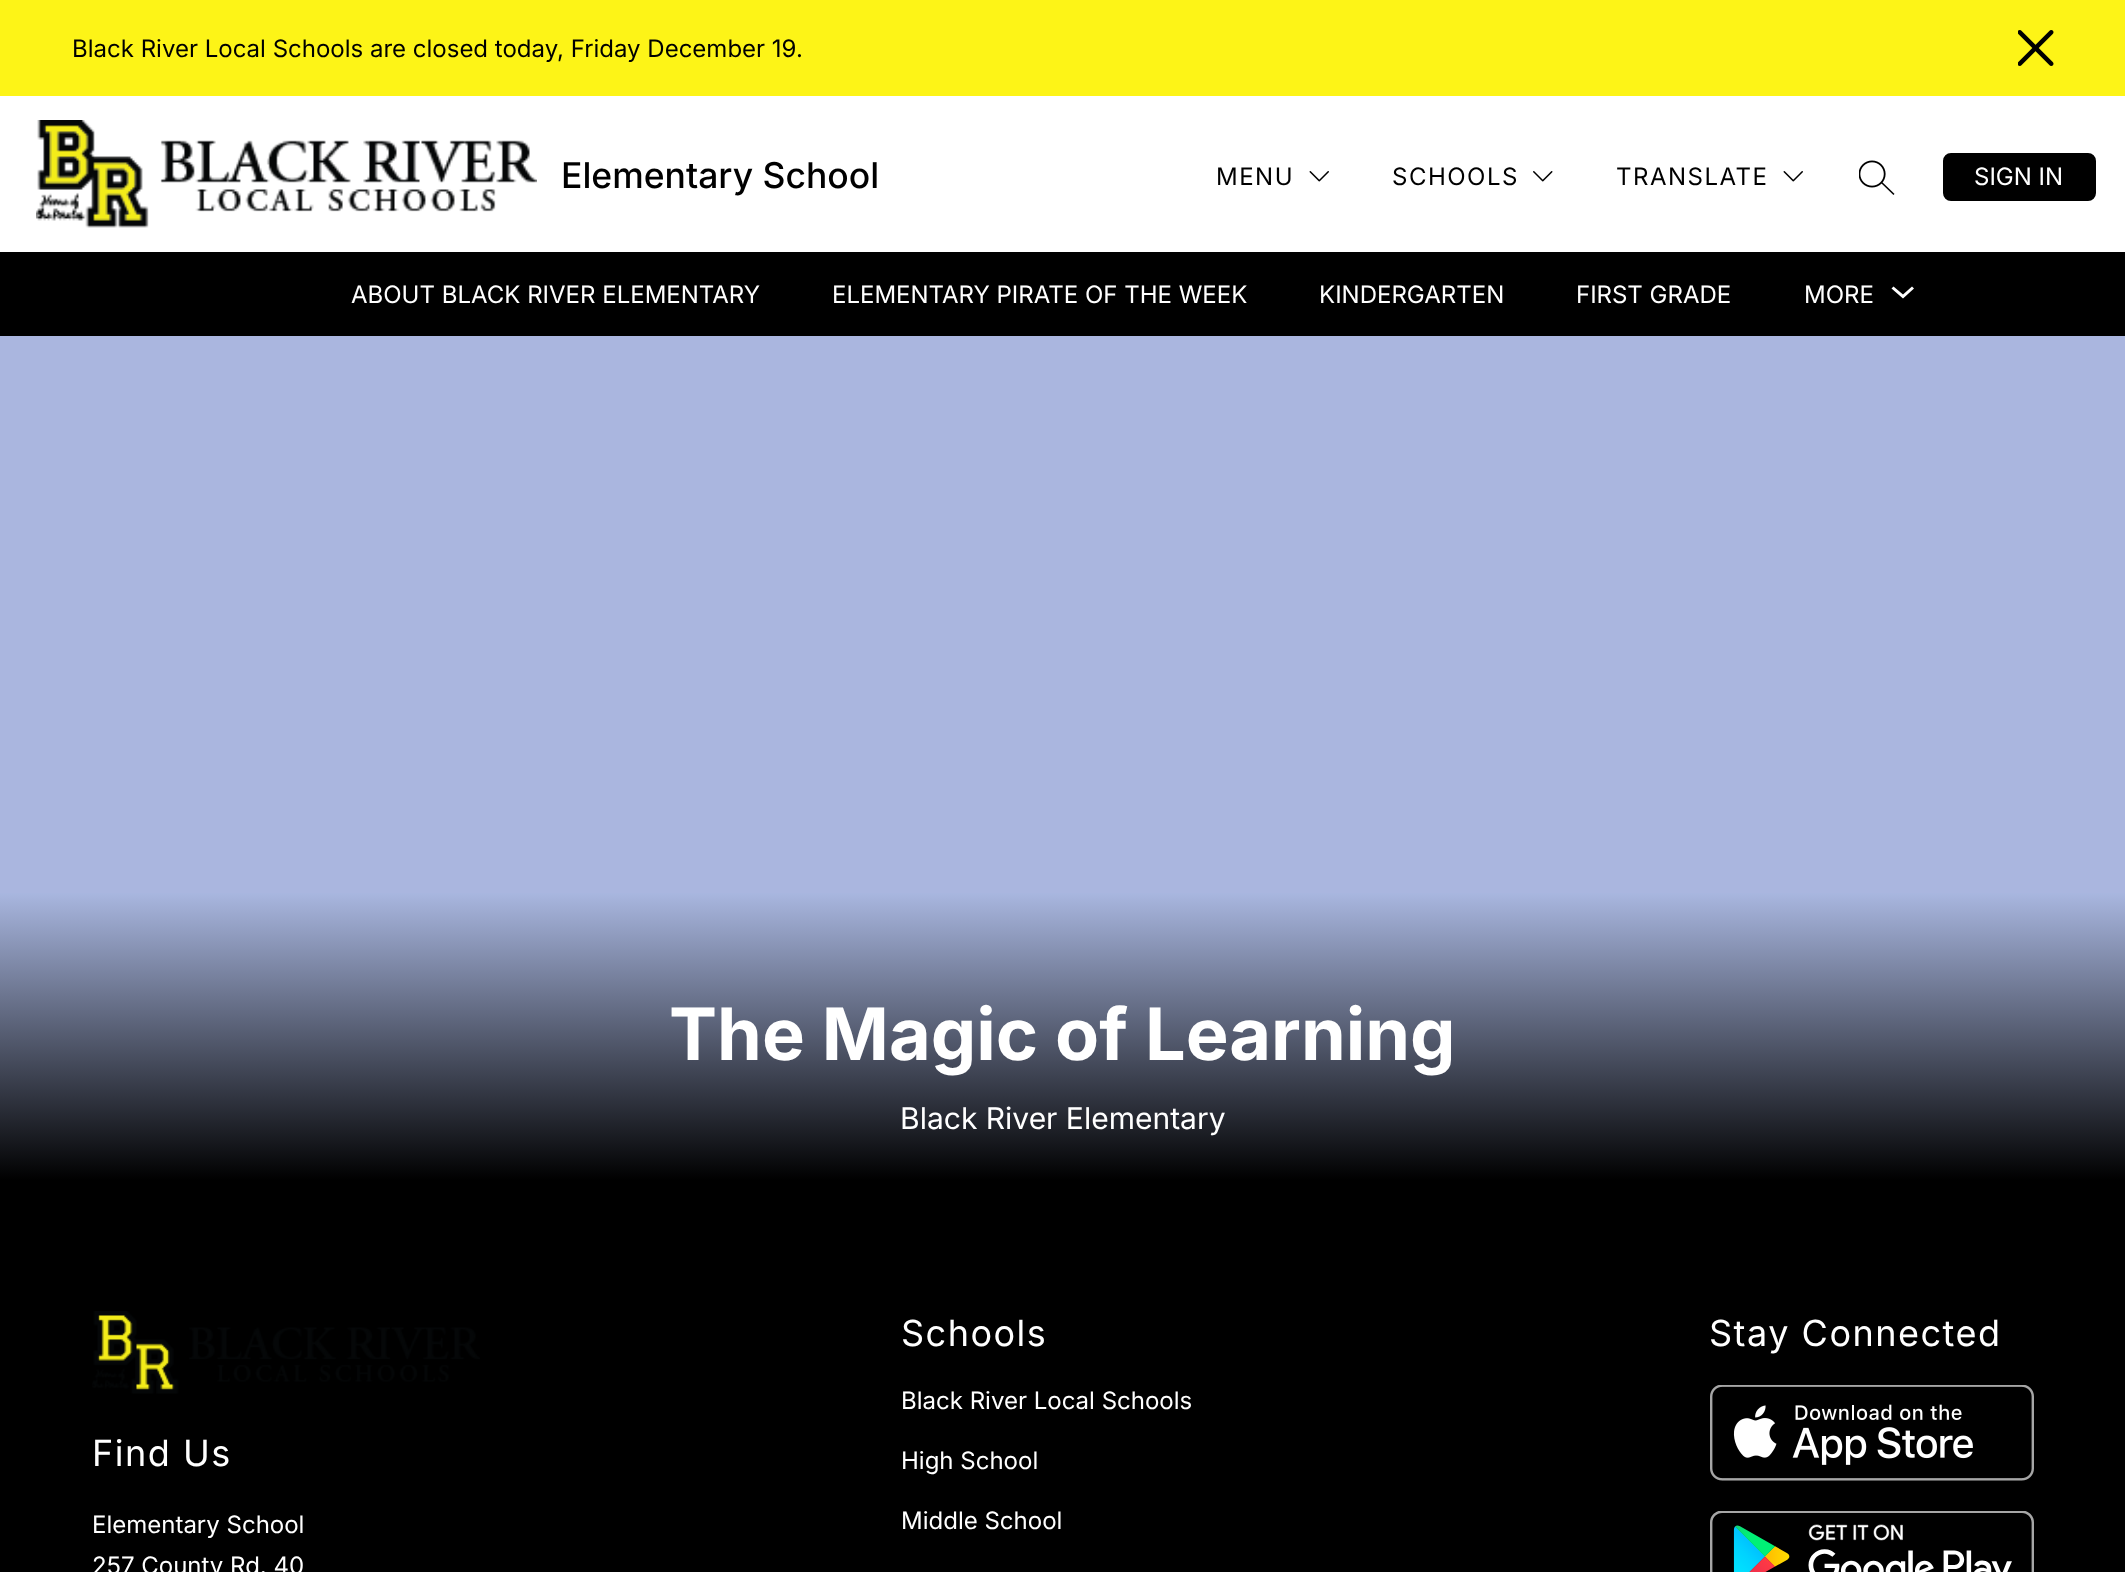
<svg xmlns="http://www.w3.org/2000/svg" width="2125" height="1572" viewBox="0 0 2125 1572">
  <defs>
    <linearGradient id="g1" gradientUnits="userSpaceOnUse" x1="1063" y1="892" x2="1063" y2="1248"><stop offset="0" stop-color="#a9b7e0"/><stop offset="0.81" stop-color="#000000"/></linearGradient>
  </defs>
  <rect width="100%" height="100%" fill="#ffffff"/>
  <rect x="0" y="0" width="2125" height="96" fill="#fdf417"/>
  <text x="72" y="57" font-family="Inter" font-size="24" fill="#000000">Black River Local Schools are closed today, Friday December 19.</text>
  <image x="2018" y="30" width="36" height="36" href="img1.png"/>
  <image x="36" y="120" width="501" height="108" href="img2.png"/>
  <text x="561" y="188" font-family="Inter" font-size="35.5" font-weight="500" fill="#000000">Elementary School</text>
  <text x="1216" y="185" font-family="Inter" font-size="24" letter-spacing="1.5" fill="#000000">MENU</text>
  <image x="1309" y="171" width="20" height="11" href="img3.png"/>
  <text x="1392" y="185" font-family="Inter" font-size="24" letter-spacing="1.5" fill="#000000">SCHOOLS</text>
  <image x="1533" y="171" width="20" height="11" href="img4.png"/>
  <text x="1616" y="185" font-family="Inter" font-size="24" letter-spacing="1.5" fill="#000000">TRANSLATE</text>
  <image x="1783" y="171" width="20" height="11" href="img3.png"/>
  <image x="1859" y="160" width="36" height="35" href="img5.png"/>
  <rect x="1944" y="154" width="151" height="46" rx="7" fill="#000000" stroke="#000000" stroke-width="2"/>
  <text x="1974" y="185" font-family="Inter" font-size="24" fill="#ffffff">SIGN IN</text>
  <rect x="0" y="252" width="2125" height="84" fill="#000000"/>
  <text x="351" y="303" font-family="Inter" font-size="24" fill="#ffffff">ABOUT BLACK RIVER ELEMENTARY</text>
  <text x="832" y="303" font-family="Inter" font-size="24" fill="#ffffff">ELEMENTARY PIRATE OF THE WEEK</text>
  <text x="1319" y="303" font-family="Inter" font-size="24" fill="#ffffff">KINDERGARTEN</text>
  <text x="1576" y="303" font-family="Inter" font-size="24" fill="#ffffff">FIRST GRADE</text>
  <text x="1804" y="303" font-family="Inter" font-size="24" fill="#ffffff">MORE</text>
  <path d="M1912 286.5L1903 294.5L1893.5 286.5L1891.5 288.5L1903 298.5L1914 288.5Z" fill="#ffffff" fill-rule="evenodd"/>
  <rect x="0" y="336" width="2125" height="557" fill="#aab6df"/>
  <rect x="0" y="893" width="2125" height="355" fill="url(#g1)"/>
  <text x="669" y="1060" font-family="Inter" font-size="72" font-weight="bold" fill="#ffffff">The Magic of Learning</text>
  <text x="900" y="1129" font-family="Inter" font-size="30" fill="#ffffff">Black River Elementary</text>
  <rect x="0" y="1248" width="2125" height="324" fill="#000000"/>
  <text x="901" y="1346" font-family="Inter" font-size="36" letter-spacing="1.5" fill="#ffffff">Schools</text>
  <text x="901" y="1409" font-family="Inter" font-size="24" fill="#ffffff">Black River Local Schools</text>
  <text x="901" y="1469" font-family="Inter" font-size="24" fill="#ffffff">High School</text>
  <text x="901" y="1529" font-family="Inter" font-size="24" fill="#ffffff">Middle School</text>
  <text x="1709" y="1346" font-family="Inter" font-size="36" letter-spacing="1.5" fill="#ffffff">Stay Connected</text>
  <image x="1710" y="1385" width="324" height="96" href="img6.png"/>
  <image x="1710" y="1511" width="324" height="61" href="img7.png"/>
  <image x="92" y="1311" width="388" height="83" href="img8.png"/>
  <text x="92" y="1466" font-family="Inter" font-size="36" letter-spacing="1.5" fill="#ffffff">Find Us</text>
  <text x="92" y="1533" font-family="Inter" font-size="24" fill="#ffffff">Elementary School</text>
  <text x="92" y="1574" font-family="Inter" font-size="24" fill="#ffffff">257 County Rd. 40</text>
</svg>
